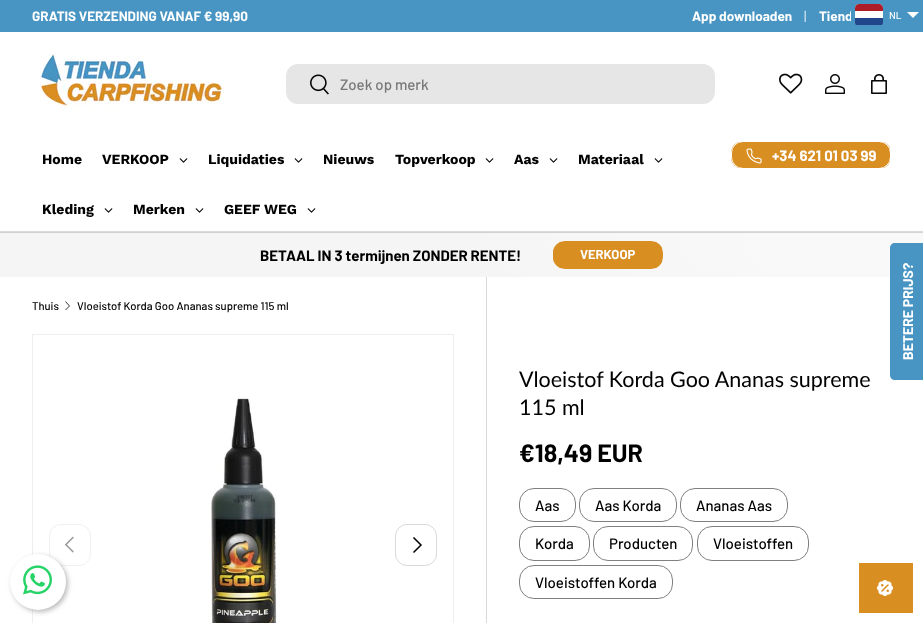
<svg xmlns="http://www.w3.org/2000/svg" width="923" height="623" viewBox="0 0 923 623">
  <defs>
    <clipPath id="clip1"><rect x="855" y="4" width="28" height="22" rx="4"/></clipPath>
    <clipPath id="clip2"><rect x="731" y="141" width="160" height="28" rx="12"/></clipPath>
    <linearGradient id="g1" gradientUnits="userSpaceOnUse" x1="427" y1="99" x2="879" y2="211"><stop offset="0.6" stop-color="#e1a650"/><stop offset="0.6" stop-color="#d98e22"/><stop offset="1" stop-color="#d98e22"/></linearGradient>
    <linearGradient id="g2" gradientUnits="userSpaceOnUse" x1="212" y1="452" x2="711" y2="-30"><stop offset="0.5" stop-color="#d0d0d0"/><stop offset="0.86" stop-color="#d4d4d4"/></linearGradient>
    <linearGradient id="g3" gradientUnits="userSpaceOnUse" x1="212" y1="496" x2="711" y2="14"><stop offset="0.5" stop-color="#f5f5f5"/><stop offset="0.86" stop-color="#f9f9f9"/></linearGradient>
    <clipPath id="clip3"><rect x="553" y="241" width="110" height="28" rx="12"/></clipPath>
    <linearGradient id="g4" gradientUnits="userSpaceOnUse" x1="344" y1="216" x2="656" y2="294"><stop offset="0.6" stop-color="#e1a650"/><stop offset="0.6" stop-color="#d98e22"/><stop offset="1" stop-color="#d98e22"/></linearGradient>
    <filter id="blur1" x="-50%" y="-200%" width="200%" height="500%"><feGaussianBlur stdDeviation="2.5"/></filter>
  </defs>
  <rect width="100%" height="100%" fill="#ffffff"/>
  <rect x="0" y="0" width="923" height="32" fill="#4895c3"/>
  <text x="32" y="21" font-family="Barlow" font-size="13.5" font-weight="bold" fill="#ffffff">GRATIS VERZENDING VANAF € 99,90</text>
  <text x="692" y="21" font-family="Barlow" font-size="13.5" font-weight="bold" fill="#ffffff">App downloaden</text>
  <text x="804" y="21" font-family="Barlow" font-size="13.5" font-weight="500" fill="#c8dfed">|</text>
  <text x="819" y="21" font-family="Barlow" font-size="13.5" font-weight="bold" fill="#ffffff">Tiend</text>
  <rect x="851" y="11" width="1" height="10" fill="#4895c3"/>
  <g clip-path="url(#clip1)">
    <path d="M859 4H879C881 4 883 6 883 8V25H855V8C855 6 857 4 859 4Z" fill="#21468b"/>
  </g>
  <path d="M859 4H879C881 4 883 6 883 8V18H855V8C855 6 857 4 859 4Z" fill="#ffffff"/>
  <path d="M859 4H879C881 4 883 6 883 8V11H855V8C855 6 857 4 859 4Z" fill="#ae1c28"/>
  <text x="889" y="19" font-family="Barlow" font-size="10" font-weight="500" fill="#ffffff">NL</text>
  <path d="M907 12H919L913 18Z" fill="#ffffff"/>
  <rect x="0" y="231" width="923" height="1" fill="#dadada"/>
  <image x="40" y="53" width="184" height="59" href="img1.png"/>
  <rect x="286" y="64" width="429" height="40" rx="12" fill="#e6e6e6"/>
  <image x="310" y="74" width="19" height="21" href="img2.png"/>
  <text x="340" y="90" font-family="Barlow" font-size="15" font-weight="500" fill="#777777">Zoek op merk</text>
  <image x="779" y="73" width="24" height="21" href="img3.png"/>
  <image x="825" y="74" width="20" height="20" href="img4.png"/>
  <image x="871" y="74" width="16" height="20" href="img5.png"/>
  <text x="42" y="164" font-family="Work Sans" font-size="14" font-weight="bold" fill="#000000">Home</text>
  <text x="102" y="164" font-family="Work Sans" font-size="14" font-weight="bold" fill="#000000">VERKOOP</text>
  <image x="179" y="158" width="9" height="5" href="img6.png"/>
  <text x="208" y="164" font-family="Work Sans" font-size="14" font-weight="bold" fill="#000000">Liquidaties</text>
  <image x="294" y="158" width="9" height="5" href="img6.png"/>
  <text x="323" y="164" font-family="Work Sans" font-size="14" font-weight="bold" fill="#000000">Nieuws</text>
  <text x="395" y="164" font-family="Work Sans" font-size="14" font-weight="bold" fill="#000000">Topverkoop</text>
  <image x="485" y="158" width="9" height="5" href="img6.png"/>
  <text x="514" y="164" font-family="Work Sans" font-size="14" font-weight="bold" fill="#000000">Aas</text>
  <image x="549" y="158" width="9" height="5" href="img6.png"/>
  <text x="578" y="164" font-family="Work Sans" font-size="14" font-weight="bold" fill="#000000">Materiaal</text>
  <image x="654" y="158" width="9" height="5" href="img6.png"/>
  <text x="42" y="214" font-family="Work Sans" font-size="14" font-weight="bold" fill="#000000">Kleding</text>
  <image x="104" y="208" width="9" height="5" href="img6.png"/>
  <text x="133" y="214" font-family="Work Sans" font-size="14" font-weight="bold" fill="#000000">Merken</text>
  <image x="195" y="208" width="9" height="5" href="img6.png"/>
  <text x="224" y="214" font-family="Work Sans" font-size="14" font-weight="bold" fill="#000000">GEEF WEG</text>
  <image x="307" y="208" width="9" height="5" href="img6.png"/>
  <g clip-path="url(#clip2)">
    <rect x="731" y="142" width="159" height="26" fill="url(#g1)"/>
  </g>
  <rect x="731.5" y="141.5" width="159" height="27" rx="11.5" fill="none" stroke="#ffffff"/>
  <image x="746" y="148" width="16" height="16" href="img7.png"/>
  <text x="772" y="161" font-family="Barlow" font-size="15" font-weight="bold" fill="#ffffff">+34 621 01 03 99</text>
  <rect x="0" y="232" width="923" height="1" fill="url(#g2)"/>
  <rect x="0" y="233" width="923" height="44" fill="url(#g3)"/>
  <text x="260" y="261" font-family="Barlow" font-size="15" font-weight="bold" fill="#000000">BETAAL IN 3 termijnen ZONDER RENTE!</text>
  <g clip-path="url(#clip3)">
    <rect x="553" y="242" width="109" height="26" fill="url(#g4)"/>
  </g>
  <rect x="553.5" y="241.5" width="109" height="27" rx="11.5" fill="none" stroke="#d98e22"/>
  <text x="580" y="259" font-family="Barlow" font-size="13" font-weight="bold" fill="#ffffff">VERKOOP</text>
  <text x="32" y="310" font-family="Barlow" font-size="11.25" font-weight="500" fill="#000000">Thuis</text>
  <path d="M65.5 301.5L69.5 306L65.5 310" fill="none" stroke="#000000" stroke-width="0.8"/>
  <text x="77" y="310" font-family="Barlow" font-size="11.25" font-weight="500" fill="#000000">Vloeistof Korda Goo Ananas supreme 115 ml</text>
  <rect x="32.5" y="334.5" width="421" height="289" fill="none" stroke="#eeeeee"/>
  <image x="33" y="335" width="420" height="288" href="img8.png"/>
  <rect x="49.5" y="524.5" width="41" height="41" rx="11.5" fill="none" stroke="#f0f0f0"/>
  <image x="65" y="536" width="9" height="17" href="img9.png"/>
  <rect x="395.5" y="524.5" width="41" height="41" rx="11.5" fill="none" stroke="#d9d9d9"/>
  <path d="M413.5 537.5L421 545L413.5 552.5" fill="none" stroke="#000000" stroke-width="1.5"/>
  <rect x="486" y="277" width="1" height="346" fill="#d9d9d9"/>
  <text x="519" y="387" font-family="Lato" font-size="21.5" fill="#000000">Vloeistof Korda Goo Ananas supreme</text>
  <text x="519" y="415" font-family="Lato" font-size="21.5" fill="#000000">115 ml</text>
  <text x="519" y="462" font-family="Barlow" font-size="25" font-weight="bold" fill="#000000">€18,49 EUR</text>
  <rect x="519.5" y="488.5" width="56" height="33" rx="14.5" fill="none" stroke="#808080"/>
  <text x="535" y="511" font-family="Barlow" font-size="15" font-weight="500" fill="#000000">Aas</text>
  <rect x="579.5" y="488.5" width="97" height="33" rx="14.5" fill="none" stroke="#808080"/>
  <text x="595" y="511" font-family="Barlow" font-size="15" font-weight="500" fill="#000000">Aas Korda</text>
  <rect x="680.5" y="488.5" width="107" height="33" rx="14.5" fill="none" stroke="#808080"/>
  <text x="696" y="511" font-family="Barlow" font-size="15" font-weight="500" fill="#000000">Ananas Aas</text>
  <rect x="519.5" y="526.5" width="70" height="34" rx="14.5" fill="none" stroke="#808080"/>
  <text x="535" y="549" font-family="Barlow" font-size="15" font-weight="500" fill="#000000">Korda</text>
  <rect x="593.5" y="526.5" width="99" height="34" rx="14.5" fill="none" stroke="#808080"/>
  <text x="609" y="549" font-family="Barlow" font-size="15" font-weight="500" fill="#000000">Producten</text>
  <rect x="697.5" y="526.5" width="111" height="34" rx="14.5" fill="none" stroke="#808080"/>
  <text x="713" y="549" font-family="Barlow" font-size="15" font-weight="500" fill="#000000">Vloeistoffen</text>
  <rect x="519.5" y="565.5" width="153" height="33" rx="14.5" fill="none" stroke="#808080"/>
  <text x="535" y="588" font-family="Barlow" font-size="15" font-weight="500" fill="#000000">Vloeistoffen Korda</text>
  <path d="M890 375V248C890 245 892 243 895 243H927V380H895C892 380 890 378 890 375Z" fill="#4895c3"/>
  <text x="913" y="360" transform="rotate(-90 913 360)" font-family="Barlow" font-size="14" font-weight="bold" fill="#ffffff">BETERE PRIJS?</text>
  <rect x="12" y="556" width="56" height="56" rx="28" fill="#000000" fill-opacity="0.27" filter="url(#blur1)"/>
  <circle cx="38" cy="582" r="28" fill="#ffffff"/>
  <image x="23" y="565" width="29" height="30" href="img10.png"/>
  <rect x="859" y="563" width="54" height="50" fill="#d98e22"/>
  <image x="877" y="580" width="16" height="16" href="img11.png"/>
</svg>
